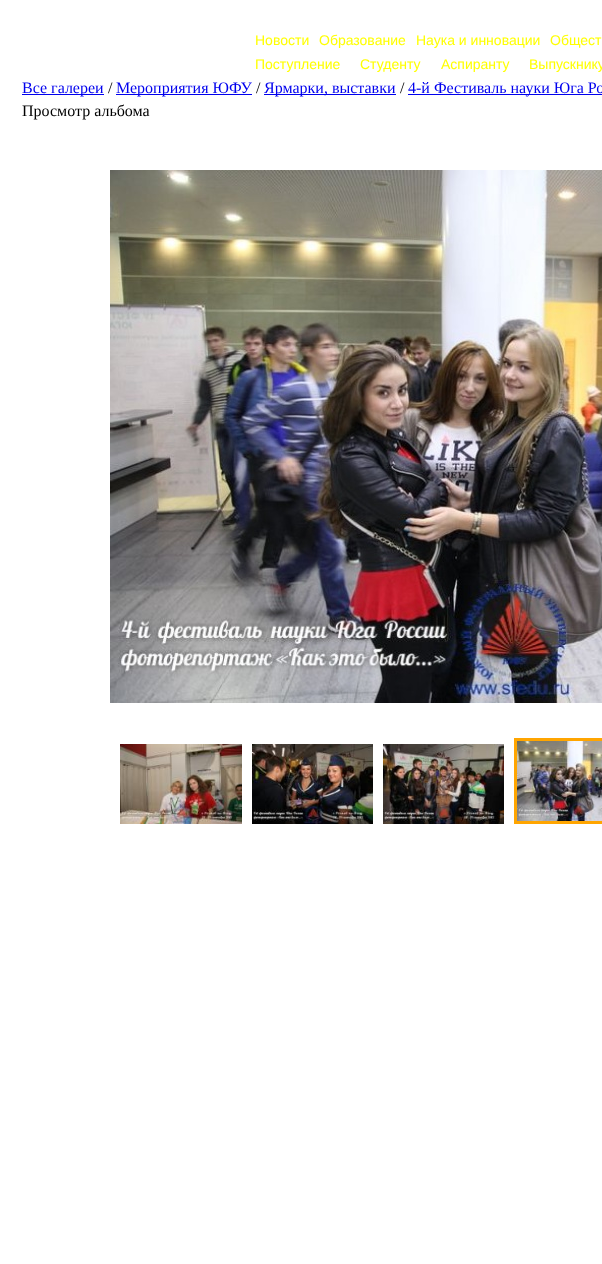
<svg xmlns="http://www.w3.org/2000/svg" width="602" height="1264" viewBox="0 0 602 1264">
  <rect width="100%" height="100%" fill="#ffffff"/>
  <text x="255" y="45" font-family="Liberation Sans" font-size="14" fill="#ffff00">Новости</text>
  <text x="319" y="45" font-family="Liberation Sans" font-size="14" fill="#ffff00">Образование</text>
  <text x="416" y="45" font-family="Liberation Sans" font-size="14" fill="#ffff00">Наука и инновации</text>
  <text x="550" y="45" font-family="Liberation Sans" font-size="14" fill="#ffff00">Общест</text>
  <text x="255" y="69" font-family="Liberation Sans" font-size="14" fill="#ffff00">Поступление</text>
  <text x="360" y="69" font-family="Liberation Sans" font-size="14" fill="#ffff00">Студенту</text>
  <text x="441" y="69" font-family="Liberation Sans" font-size="14" fill="#ffff00">Аспиранту</text>
  <text x="529" y="69" font-family="Liberation Sans" font-size="14" fill="#ffff00">Выпускнику</text>
  <rect x="22" y="94" width="82" height="1" fill="#0000ee"/>
  <text x="22" y="93" font-family="Liberation Serif" font-size="16" fill="#0000ee">Все галереи</text>
  <text x="108" y="93" font-family="Liberation Serif" font-size="16" fill="#000000">/</text>
  <rect x="116" y="94" width="136" height="1" fill="#0000ee"/>
  <text x="116" y="93" font-family="Liberation Serif" font-size="16" fill="#0000ee">Мероприятия ЮФУ</text>
  <text x="256" y="93" font-family="Liberation Serif" font-size="16" fill="#000000">/</text>
  <rect x="264" y="94" width="132" height="1" fill="#0000ee"/>
  <text x="264" y="93" font-family="Liberation Serif" font-size="16" fill="#0000ee">Ярмарки, выставки</text>
  <text x="400" y="93" font-family="Liberation Serif" font-size="16" fill="#000000">/</text>
  <rect x="408" y="94" width="194" height="1" fill="#0000ee"/>
  <text x="408" y="93" font-family="Liberation Serif" font-size="16" fill="#0000ee">4-й Фестиваль науки Юга Ро</text>
  <text x="22" y="116" font-family="Liberation Serif" font-size="16" fill="#000000">Просмотр альбома</text>
  <image x="110" y="170" width="492" height="533" href="img1.png"/>
  <rect x="515.5" y="739.5" width="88" height="83" fill="none" stroke="#ffa500" stroke-width="3"/>
  <image x="120" y="744" width="122" height="80" href="img2.png"/>
  <image x="252" y="744" width="121" height="80" href="img3.png"/>
  <image x="383" y="744" width="121" height="80" href="img4.png"/>
  <image x="517" y="741" width="85" height="80" href="img5.png"/>
</svg>
